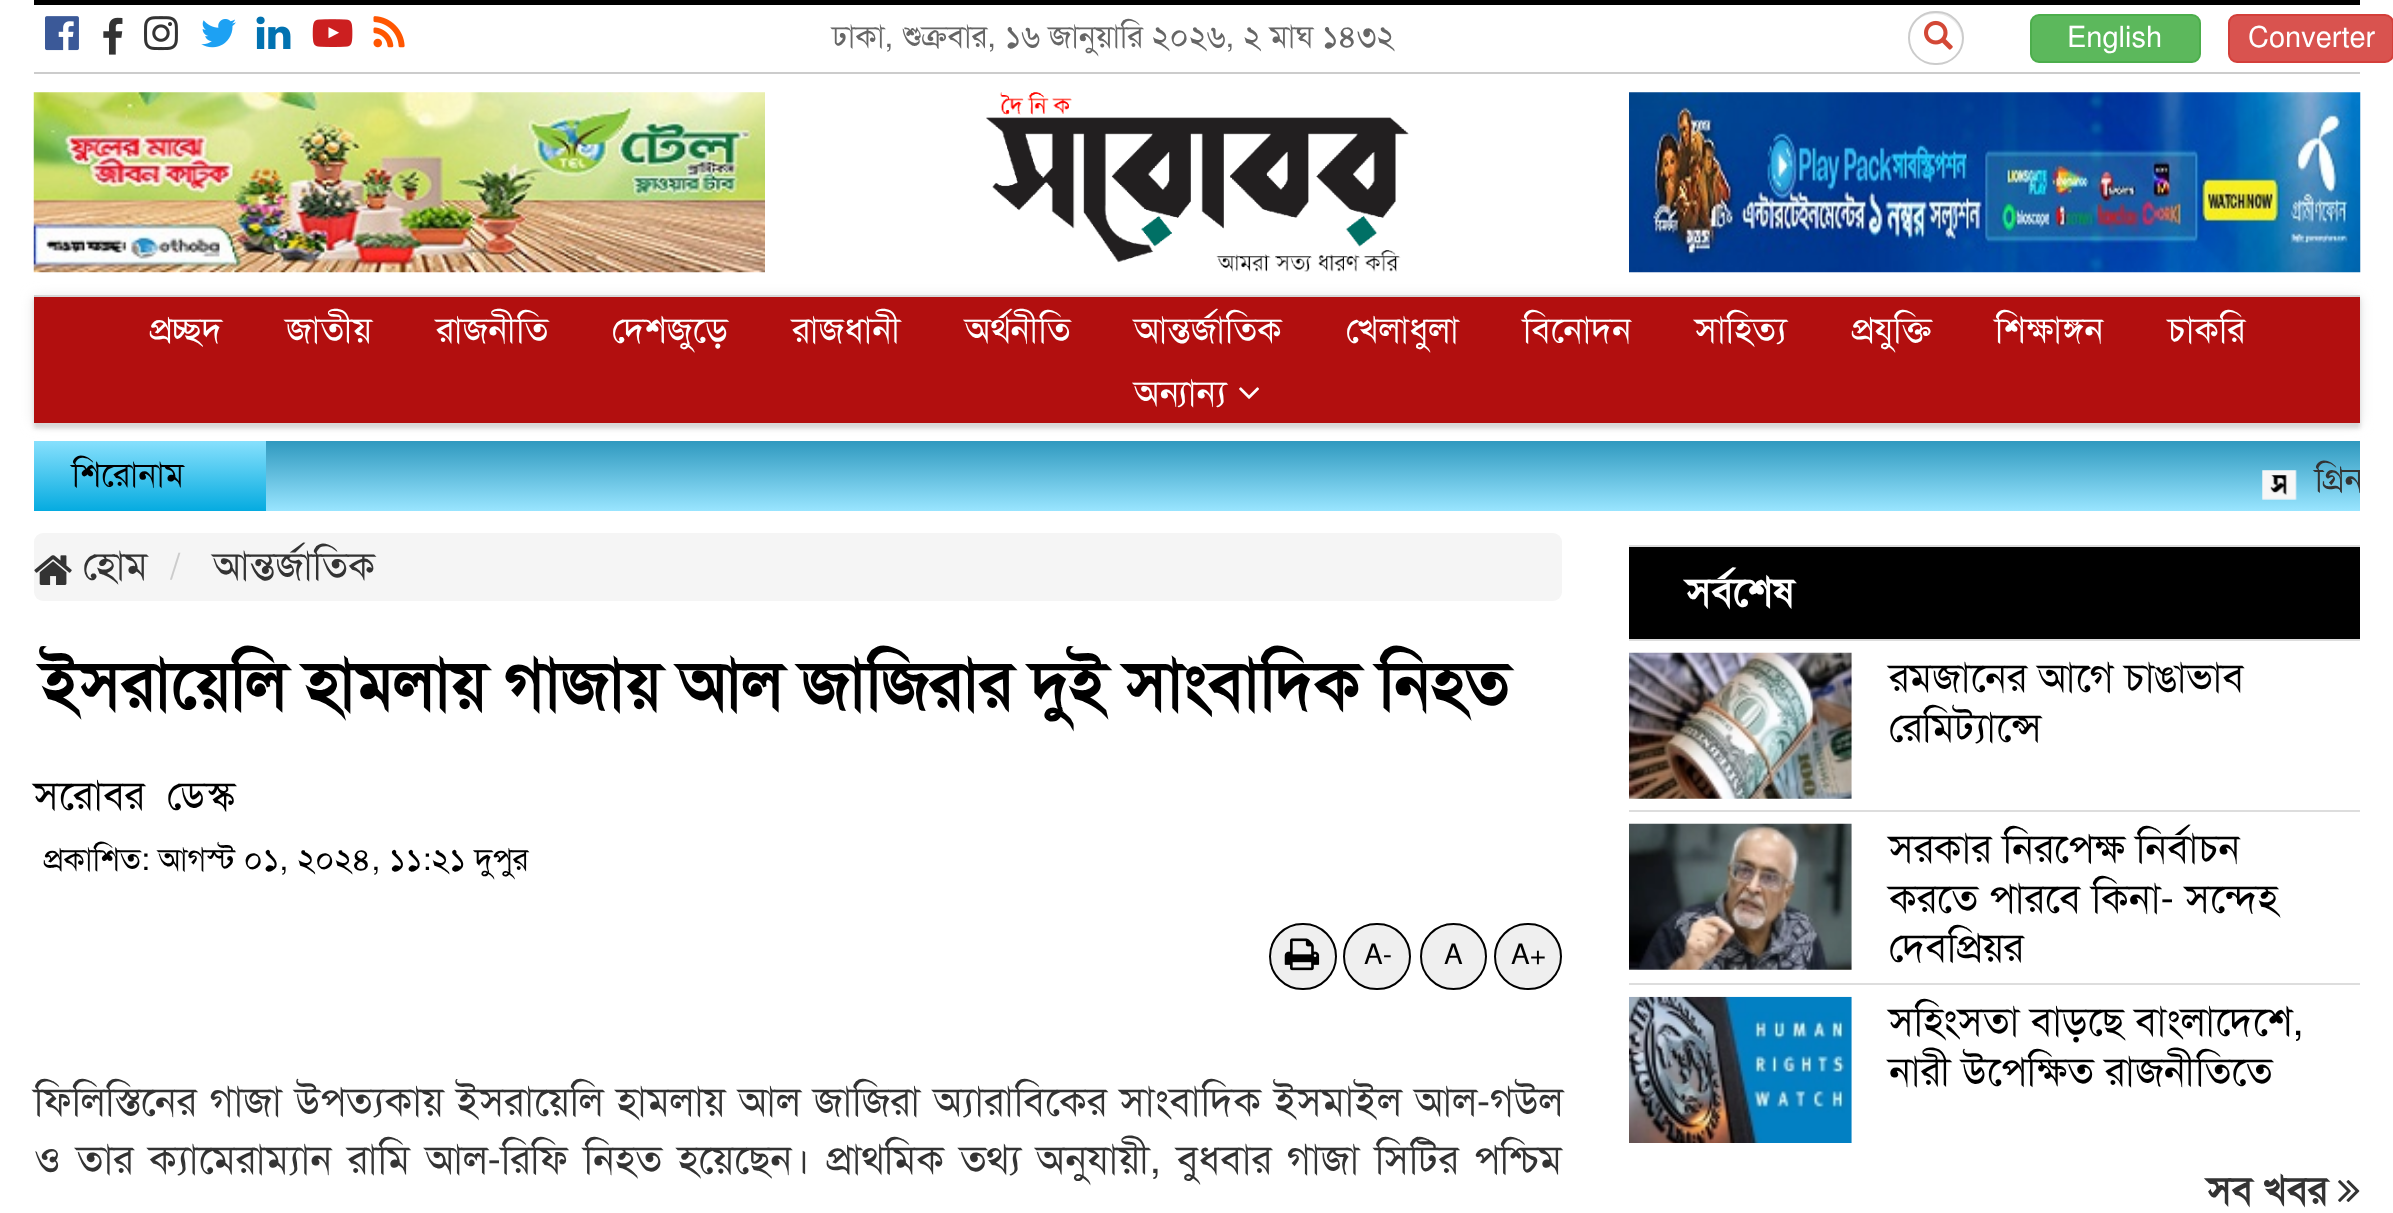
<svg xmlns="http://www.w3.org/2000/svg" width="2393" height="1213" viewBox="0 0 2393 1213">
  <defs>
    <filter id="blur1" x="-50%" y="-200%" width="200%" height="500%"><feGaussianBlur stdDeviation="2"/></filter>
    <linearGradient id="g1" gradientUnits="userSpaceOnUse" x1="1197" y1="441" x2="1197" y2="511"><stop offset="0" stop-color="#2f99bf"/><stop offset="1" stop-color="#99e5ff"/></linearGradient>
    <clipPath id="clip1"><path d="M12 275H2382V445H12ZM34 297H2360V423H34Z" clip-rule="evenodd"/></clipPath>
    <filter id="blur2" x="-50%" y="-200%" width="200%" height="500%"><feGaussianBlur stdDeviation="7"/></filter>
    <linearGradient id="g2" gradientUnits="userSpaceOnUse" x1="150" y1="441" x2="150" y2="511"><stop offset="0" stop-color="#87e0fd"/><stop offset="0.4" stop-color="#53cbf1"/><stop offset="1" stop-color="#05abe0"/></linearGradient>
    <clipPath id="clip2"><rect x="266" y="441" width="2094" height="63"/></clipPath>
  </defs>
  <rect width="100%" height="100%" fill="#ffffff"/>
  <rect x="34" y="0" width="2326" height="5" fill="#000000"/>
  <rect x="34" y="72" width="2326" height="2" fill="#cccccc"/>
  <image x="45" y="16" width="34" height="35" href="img1.png"/>
  <image x="103" y="17" width="20" height="38" href="img2.png"/>
  <image x="144" y="16" width="34" height="35" href="img3.png"/>
  <image x="201" y="19" width="35" height="29" href="img4.png"/>
  <image x="256" y="16" width="35" height="33" href="img5.png"/>
  <image x="312" y="19" width="41" height="28" href="img6.png"/>
  <image x="373" y="16" width="32" height="32" href="img7.png"/>
  <text x="832" y="47" font-family="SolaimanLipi" font-size="31.5" fill="#666666">ঢাকা, শুক্রবার, ১৬ জানুয়ারি ২০২৬, ২ মাঘ ১৪৩২</text>
  <path d="M1935 14C1950 14 1961 25 1962 39C1962 33 1961 28 1957 23C1942 1 1907 12 1908 39C1909 25 1920 14 1935 14Z" fill="#ececec"/>
  <rect x="1909" y="12" width="54" height="52" rx="26" fill="none" stroke="#cccccc" stroke-width="2"/>
  <image x="1924" y="20" width="29" height="30" href="img8.png"/>
  <rect x="2031" y="15" width="169" height="47" rx="8" fill="#5cb85c" stroke="#4cae4c" stroke-width="2"/>
  <text x="2067" y="47" font-family="SolaimanLipi" font-size="29" fill="#ffffff">English</text>
  <rect x="2229" y="15" width="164" height="47" rx="8" fill="#d9534f" stroke="#d43f3a" stroke-width="2"/>
  <text x="2248" y="47" font-family="SolaimanLipi" font-size="29" fill="#ffffff">Converter</text>
  <image x="33" y="92" width="732" height="181" href="img9.png"/>
  <image x="986" y="92" width="423" height="180" href="img10.png"/>
  <image x="1629" y="92" width="732" height="181" href="img11.png"/>
  <rect x="34" y="299" width="2326" height="129" fill="#000000" fill-opacity="0.2" filter="url(#blur1)"/>
  <rect x="34" y="297" width="2326" height="126" fill="#b20f0f"/>
  <rect x="34" y="295" width="2326" height="2" fill="#cccccc"/>
  <rect x="266" y="441" width="2094" height="70" fill="url(#g1)"/>
  <g clip-path="url(#clip1)">
    <rect x="34" y="297" width="2326" height="126" fill="#e5e5e5" filter="url(#blur2)"/>
  </g>
  <text x="149" y="342" font-family="SolaimanLipi" font-size="36" fill="#ffffff">প্রচ্ছদ</text>
  <text x="286" y="342" font-family="SolaimanLipi" font-size="36" fill="#ffffff">জাতীয়</text>
  <text x="436" y="342" font-family="SolaimanLipi" font-size="36" fill="#ffffff">রাজনীতি</text>
  <text x="612" y="342" font-family="SolaimanLipi" font-size="36" fill="#ffffff">দেশজুড়ে</text>
  <text x="792" y="342" font-family="SolaimanLipi" font-size="36" fill="#ffffff">রাজধানী</text>
  <text x="965" y="342" font-family="SolaimanLipi" font-size="36" fill="#ffffff">অর্থনীতি</text>
  <text x="1134" y="342" font-family="SolaimanLipi" font-size="36" fill="#ffffff">আন্তর্জাতিক</text>
  <text x="1346" y="342" font-family="SolaimanLipi" font-size="36" fill="#ffffff">খেলাধুলা</text>
  <text x="1523" y="342" font-family="SolaimanLipi" font-size="36" fill="#ffffff">বিনোদন</text>
  <text x="1695" y="342" font-family="SolaimanLipi" font-size="36" fill="#ffffff">সাহিত্য</text>
  <text x="1851" y="342" font-family="SolaimanLipi" font-size="36" fill="#ffffff">প্রযুক্তি</text>
  <text x="1995" y="342" font-family="SolaimanLipi" font-size="36" fill="#ffffff">শিক্ষাঙ্গন</text>
  <text x="2168" y="342" font-family="SolaimanLipi" font-size="36" fill="#ffffff">চাকরি</text>
  <text x="1134" y="405" font-family="SolaimanLipi" font-size="36" fill="#ffffff">অন্যান‌্য</text>
  <image x="1239" y="387" width="20" height="12" href="img12.png"/>
  <rect x="34" y="441" width="232" height="70" fill="url(#g2)"/>
  <text x="72" y="486" font-family="SolaimanLipi" font-size="34" fill="#000000">শিরোনাম</text>
  <image x="2262" y="470" width="35" height="30" href="img13.png"/>
  <g clip-path="url(#clip2)">
    <text x="2315" y="491" font-family="SolaimanLipi" font-size="34" fill="#333333">গ্রিন</text>
  </g>
  <rect x="34" y="533" width="1528" height="68" rx="9" fill="#f5f5f5"/>
  <image x="34" y="555" width="38" height="30" href="img14.png"/>
  <text x="83" y="579" font-family="SolaimanLipi" font-size="39.5" fill="#333333">হোম</text>
  <text x="169" y="579" font-family="SolaimanLipi" font-size="36" fill="#cccccc">/</text>
  <text x="213" y="579" font-family="SolaimanLipi" font-size="39.5" fill="#333333">আন্তর্জাতিক</text>
  <text x="41" y="708" font-family="SolaimanLipi" font-size="67.5" font-weight="bold" fill="#000000">ইসরায়েলি হামলায় গাজায় আল জাজিরার দুই সাংবাদিক নিহত</text>
  <text x="34" y="809" font-family="SolaimanLipi" font-size="40.5" fill="#000000" xml:space="preserve">সরোবর  ডেস্ক</text>
  <text x="43" y="870" font-family="SolaimanLipi" font-size="31.7" fill="#000000">প্রকাশিত: আগস্ট ০১, ২০২৪, ১১:২১ দুপুর</text>
  <rect x="1270" y="924" width="66" height="65" rx="32.5" fill="#efefef" stroke="#000000" stroke-width="2"/>
  <image x="1284" y="938" width="36" height="33" href="img15.png"/>
  <rect x="1344" y="924" width="66" height="65" rx="32.5" fill="#efefef" stroke="#000000" stroke-width="2"/>
  <text x="1364" y="964" font-family="SolaimanLipi" font-size="28" fill="#000000">A-</text>
  <circle cx="1453.5" cy="956.5" r="32.5" fill="#efefef" stroke="#000000" stroke-width="2"/>
  <text x="1444" y="964" font-family="SolaimanLipi" font-size="28" fill="#000000">A</text>
  <rect x="1495" y="924" width="66" height="65" rx="32.5" fill="#efefef" stroke="#000000" stroke-width="2"/>
  <text x="1511" y="964" font-family="SolaimanLipi" font-size="28" fill="#000000">A+</text>
  <text x="34" y="1115" word-spacing="2" font-family="SolaimanLipi" font-size="40.5" fill="#333333">ফিলিস্তিনের গাজা উপত্যকায় ইসরায়েলি হামলায় আল জাজিরা অ্যারাবিকের সাংবাদিক ইসমাইল আল-গউল</text>
  <text x="34" y="1173" word-spacing="4.5" font-family="SolaimanLipi" font-size="40.5" fill="#333333">ও তার ক্যামেরাম্যান রামি আল-রিফি নিহত হয়েছেন। প্রাথমিক তথ্য অনুযায়ী, বুধবার গাজা সিটির পশ্চিম</text>
  <rect x="1629" y="639" width="731" height="2" fill="#dddddd"/>
  <rect x="1629" y="547" width="731" height="92" fill="#000000"/>
  <rect x="1629" y="545" width="731" height="2" fill="#dddddd"/>
  <text x="1686" y="606" font-family="SolaimanLipi" font-size="40.5" font-weight="bold" fill="#ffffff">সর্বশেষ</text>
  <rect x="1629" y="810" width="731" height="2" fill="#dddddd"/>
  <image x="1629" y="652" width="223" height="147" href="img16.png"/>
  <text x="1889" y="691" font-family="SolaimanLipi" font-size="40.5" fill="#000000">রমজানের আগে চাঙাভাব</text>
  <text x="1889" y="741" font-family="SolaimanLipi" font-size="40.5" fill="#000000">রেমিট্যান্সে</text>
  <rect x="1629" y="983" width="731" height="2" fill="#dddddd"/>
  <image x="1629" y="823" width="223" height="147" href="img17.png"/>
  <text x="1889" y="862" font-family="SolaimanLipi" font-size="40.5" fill="#000000">সরকার নিরপেক্ষ নির্বাচন</text>
  <text x="1889" y="912" font-family="SolaimanLipi" font-size="40.5" fill="#000000">করতে পারবে কিনা- সন্দেহ</text>
  <text x="1889" y="961" font-family="SolaimanLipi" font-size="40.5" fill="#000000">দেবপ্রিয়র</text>
  <image x="1629" y="996" width="223" height="147" href="img18.png"/>
  <text x="1889" y="1035" font-family="SolaimanLipi" font-size="40.5" fill="#000000">সহিংসতা বাড়ছে বাংলাদেশে,</text>
  <text x="1889" y="1085" font-family="SolaimanLipi" font-size="40.5" fill="#000000">নারী উপেক্ষিত রাজনীতিতে</text>
  <text x="2207" y="1204" font-family="SolaimanLipi" font-size="39.5" font-weight="bold" fill="#333333">সব খবর</text>
  <image x="2338" y="1180" width="22" height="22" href="img19.png"/>
</svg>
